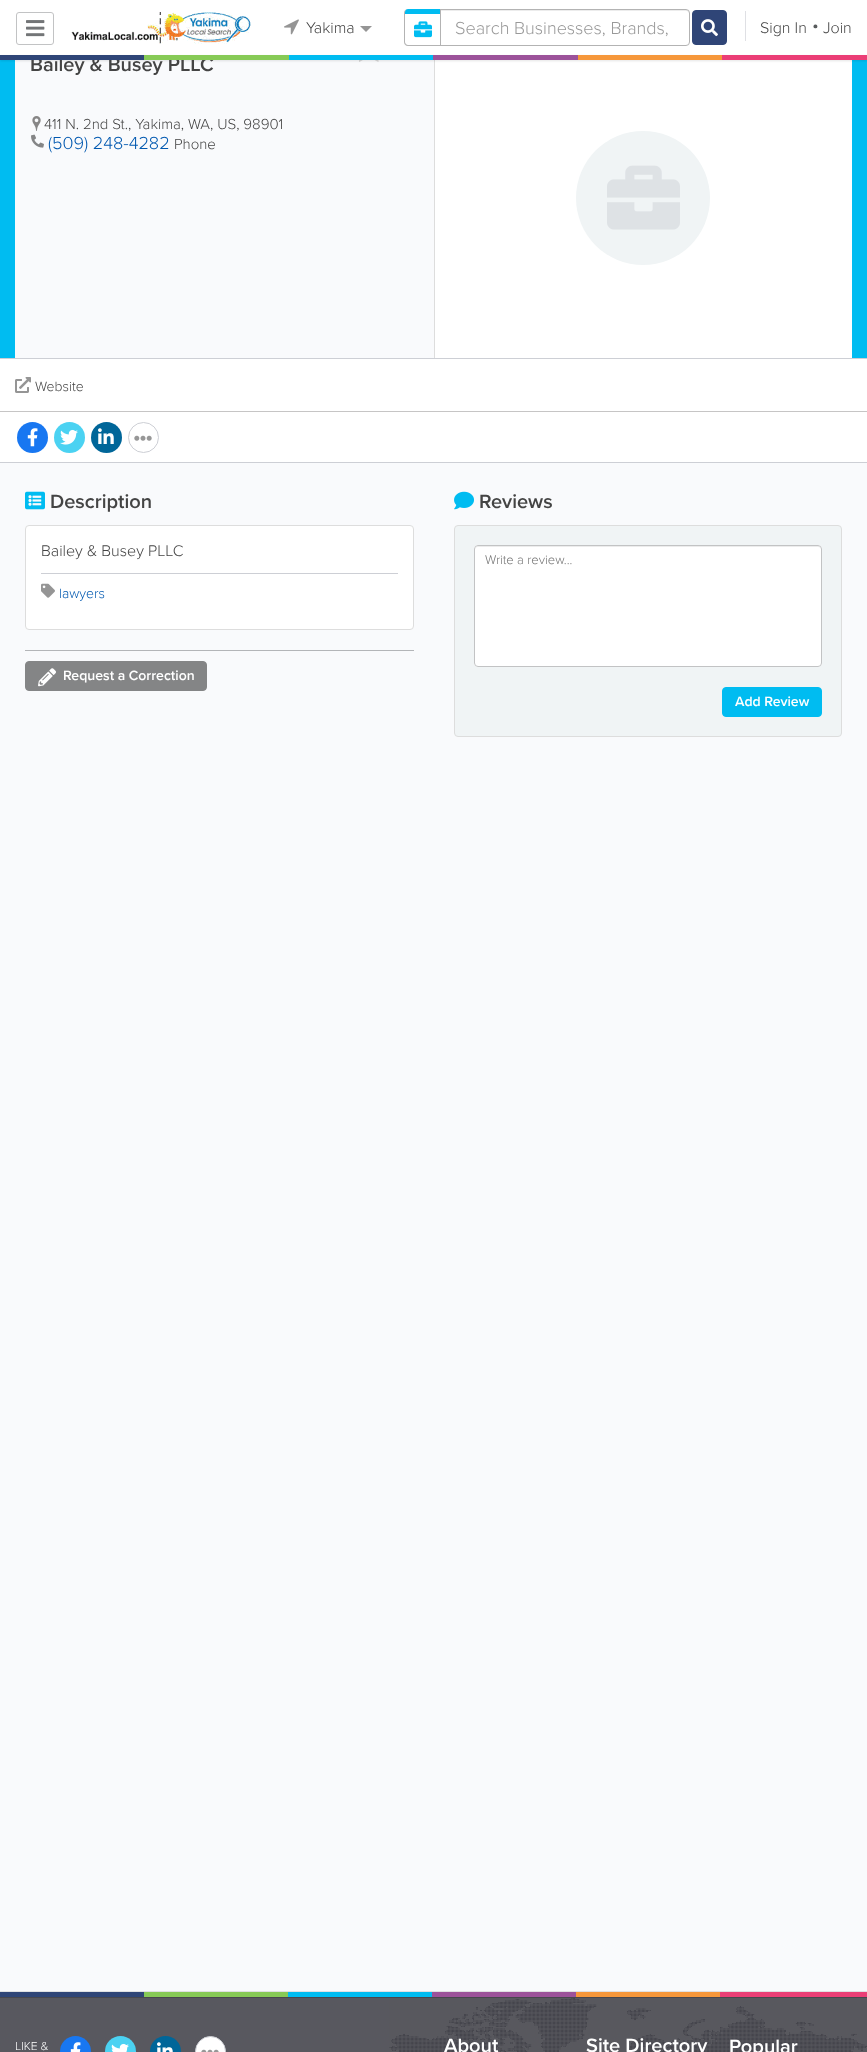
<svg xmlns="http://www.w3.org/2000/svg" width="867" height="2052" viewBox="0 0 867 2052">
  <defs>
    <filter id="blur1" x="-50%" y="-200%" width="200%" height="500%"><feGaussianBlur stdDeviation="1"/></filter>
  </defs>
  <rect width="100%" height="100%" fill="#f9fafc"/>
  <rect x="0" y="0" width="867" height="55" fill="#ffffff"/>
  <rect x="16.5" y="12.5" width="37" height="32" rx="2.5" fill="none" stroke="#c2c3c4"/>
  <image x="26" y="20" width="19" height="17" href="img1.png"/>
  <image x="71" y="12" width="180" height="32" href="img2.png"/>
  <image x="284" y="19" width="15" height="16" href="img3.png"/>
  <text x="306" y="33" font-family="Proxima Nova" font-size="16" font-weight="300" fill="#444444">Yakima</text>
  <path d="M360 26H372L366 32Z" fill="#959595"/>
  <path d="M408 11H686C688 11 689 12 689 14V13C689 11 688 10 686 10H408C406 10 405 11 405 13V14C405 12 406 11 408 11Z" fill="#ececec"/>
  <rect x="404.5" y="9.5" width="285" height="36" rx="3.5" fill="none" stroke="#b3b3b3"/>
  <path d="M408 9H441V46H408C406 46 404 44 404 42V13C404 11 406 9 408 9Z" fill="#ffffff"/>
  <path d="M408 9H441V46H408C406 46 404 44 404 42V13C404 11 406 9 408 9ZM408 9H440V45H408C406.5 45 405 43.5 405 42V13C405 11 406.5 9 408 9Z" fill="#b3b3b3" fill-rule="evenodd"/>
  <path d="M408 9H440V14H405V12C405 10.5 406.5 9 408 9Z" fill="#00bcf1"/>
  <image x="414" y="21" width="18" height="17" href="img4.png"/>
  <text x="455" y="34" font-family="Proxima Nova" font-size="18" font-weight="300" fill="#999999">Search Businesses, Brands,</text>
  <rect x="692.5" y="10.5" width="34" height="34" rx="3.5" fill="#2f4577" stroke="#2f4577"/>
  <image x="701" y="19" width="17" height="18" href="img5.png"/>
  <rect x="745" y="11" width="1" height="30" fill="#dfe0e4"/>
  <text x="760" y="33" font-family="Proxima Nova" font-size="16" font-weight="300" fill="#444444">Sign In</text>
  <text x="812" y="31" font-family="Proxima Nova" font-size="19" font-weight="300" fill="#585b5d">•</text>
  <text x="823" y="33" font-family="Proxima Nova" font-size="16" font-weight="300" fill="#444444">Join</text>
  <rect x="0" y="60" width="867" height="298" fill="#00bcf1"/>
  <rect x="15" y="60" width="419" height="298" fill="#f9fafc"/>
  <image x="359" y="60" width="20" height="2" href="img6.png"/>
  <rect x="435" y="60" width="417" height="298" fill="#ffffff"/>
  <rect x="434" y="60" width="1" height="298" fill="#dddddd"/>
  <rect x="0" y="56" width="867" height="5" fill="#000000" fill-opacity="0.1" filter="url(#blur1)"/>
  <rect x="722" y="55" width="145" height="5" fill="#eb3e76"/>
  <text x="30" y="71" font-family="Proxima Nova" font-size="20" font-weight="600" fill="#444444">Bailey &amp; Busey PLLC</text>
  <rect x="0" y="55" width="144" height="5" fill="#2f4577"/>
  <rect x="144" y="55" width="145" height="5" fill="#87ca56"/>
  <rect x="289" y="55" width="144" height="5" fill="#00bcf1"/>
  <rect x="433" y="55" width="145" height="5" fill="#9c529a"/>
  <rect x="578" y="55" width="144" height="5" fill="#f6973a"/>
  <image x="32" y="116" width="9" height="15" href="img7.png"/>
  <text x="44" y="129" font-family="Proxima Nova" font-size="15" font-weight="300" fill="#444444">411 N. 2nd St., Yakima, WA, US, 98901</text>
  <image x="31" y="134" width="13" height="14" href="img8.png"/>
  <text x="48" y="149" font-family="Proxima Nova" font-size="18" font-weight="300" fill="#0158b0">(509) 248-4282</text>
  <text x="174" y="149" font-family="Proxima Nova" font-size="15" font-weight="300" fill="#444444">Phone</text>
  <circle cx="643" cy="198" r="67" fill="#f0f4f5"/>
  <image x="607" y="165" width="73" height="65" href="img9.png"/>
  <rect x="0" y="359" width="867" height="103" fill="#ffffff"/>
  <rect x="0" y="358" width="867" height="1" fill="#cdcfd5"/>
  <rect x="0" y="462" width="867" height="1" fill="#cdcfd5"/>
  <image x="15" y="377" width="16" height="16" href="img10.png"/>
  <text x="35" y="391" font-family="Proxima Nova" font-size="14" font-weight="300" fill="#444444">Website</text>
  <rect x="0" y="411" width="867" height="1" fill="#c6c5c5"/>
  <circle cx="32.5" cy="437.5" r="15.5" fill="#1877f1"/>
  <image x="27" y="428" width="11" height="19" href="img11.png"/>
  <circle cx="69.5" cy="437.5" r="15.5" fill="#4bd2f2"/>
  <image x="60" y="429" width="18" height="16" href="img12.png"/>
  <circle cx="106.5" cy="437.5" r="15.5" fill="#006699"/>
  <image x="98" y="428" width="16" height="16" href="img13.png"/>
  <circle cx="143.5" cy="437.5" r="15" fill="none" stroke="#cdcfd5"/>
  <image x="134" y="435" width="18" height="6" href="img14.png"/>
  <image x="25" y="491" width="20" height="19" href="img15.png"/>
  <text x="50" y="508" font-family="Proxima Nova" font-size="20" font-weight="600" fill="#444444">Description</text>
  <rect x="25.5" y="525.5" width="388" height="104" rx="3.5" fill="#ffffff" stroke="#dddddd"/>
  <text x="41" y="556" font-family="Proxima Nova" font-size="16" font-weight="300" fill="#444444">Bailey &amp; Busey PLLC</text>
  <rect x="41" y="573" width="357" height="1" fill="#cdcfd5"/>
  <image x="41" y="583" width="14" height="15" href="img16.png"/>
  <text x="59" y="598" font-family="Proxima Nova" font-size="14" font-weight="300" fill="#0158b0">lawyers</text>
  <rect x="25" y="650" width="389" height="1" fill="#b3b5b8"/>
  <rect x="25.5" y="661.5" width="181" height="29" rx="3.5" fill="#848586" stroke="#848586"/>
  <image x="38" y="668" width="18" height="19" href="img17.png"/>
  <text x="63" y="680" font-family="Proxima Nova" font-size="14" font-weight="600" fill="#ffffff">Request a Correction</text>
  <image x="454" y="491" width="20" height="19" href="img18.png"/>
  <text x="479" y="508" font-family="Proxima Nova" font-size="20" font-weight="600" fill="#444444">Reviews</text>
  <rect x="454.5" y="525.5" width="387" height="211" rx="3.5" fill="#f0f4f5" stroke="#dddddd"/>
  <rect x="474" y="545" width="348" height="122" rx="4" fill="#ffffff"/>
  <path d="M478 547H818C820 547 821 548 821 550C821 548 820 546 818 546H478L476 547L475 550C475 548 476 547 478 547Z" fill="#ececec"/>
  <rect x="474.5" y="545.5" width="347" height="121" rx="3.5" fill="none" stroke="#c2c3c4"/>
  <text x="485" y="564" font-family="Proxima Nova" font-size="13" font-weight="300" fill="#757575">Write a review...</text>
  <rect x="722.5" y="687.5" width="99" height="29" rx="3.5" fill="#00bcf1" stroke="#00bcf1"/>
  <text x="735" y="706" font-family="Proxima Nova" font-size="14" font-weight="600" fill="#ffffff">Add Review</text>
  <rect x="0" y="1991" width="867" height="1" fill="#e0e1e3"/>
  <rect x="720" y="1992" width="147" height="5" fill="#eb3e76"/>
  <rect x="0" y="1992" width="144" height="5" fill="#2f4577"/>
  <rect x="144" y="1992" width="144" height="5" fill="#87ca56"/>
  <rect x="288" y="1992" width="144" height="5" fill="#00bcf1"/>
  <rect x="432" y="1992" width="144" height="5" fill="#9c529a"/>
  <rect x="576" y="1992" width="144" height="5" fill="#f6973a"/>
  <rect x="0" y="1998" width="389" height="54" fill="#58585f"/>
  <image x="389" y="1998" width="478" height="54" href="img19.png"/>
  <rect x="0" y="1997" width="867" height="1" fill="#47474d"/>
  <text x="15" y="2050" font-family="Proxima Nova" font-size="12" font-weight="300" fill="#ffffff">LIKE &amp;</text>
  <circle cx="75.5" cy="2051.5" r="15.5" fill="#1877f1"/>
  <image x="70" y="2042" width="11" height="10" href="img20.png"/>
  <circle cx="120.5" cy="2051.5" r="15.5" fill="#4bd2f2"/>
  <image x="111" y="2043" width="18" height="9" href="img21.png"/>
  <circle cx="165.5" cy="2051.5" r="15.5" fill="#006699"/>
  <image x="157" y="2042" width="16" height="10" href="img22.png"/>
  <circle cx="210.5" cy="2051.5" r="15" fill="#ffffff" stroke="#cdcfd5"/>
  <image x="201" y="2049" width="18" height="3" href="img23.png"/>
  <text x="444" y="2052" font-family="Proxima Nova" font-size="20" font-weight="600" fill="#ffffff">About</text>
  <text x="586" y="2052" font-family="Proxima Nova" font-size="20" font-weight="600" fill="#ffffff">Site Directory</text>
  <text x="729" y="2053" font-family="Proxima Nova" font-size="20" font-weight="600" fill="#ffffff">Popular</text>
</svg>
